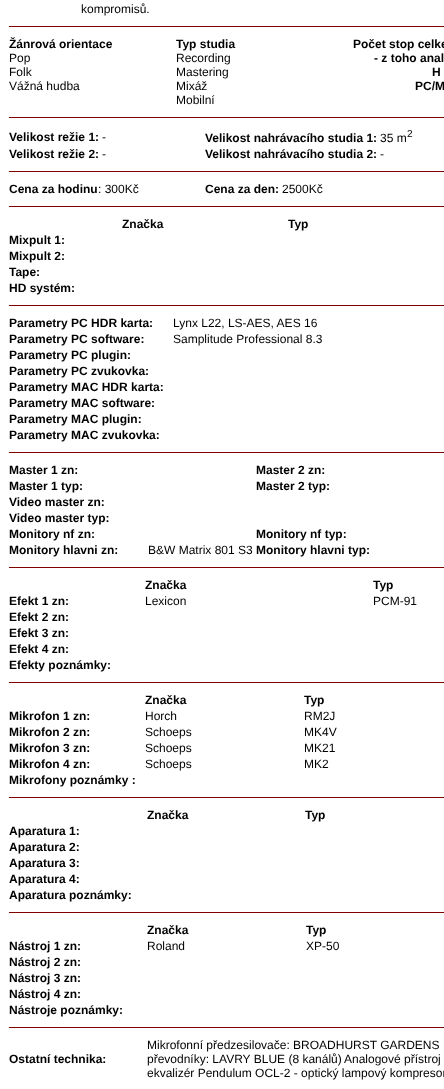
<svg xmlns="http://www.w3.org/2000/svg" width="444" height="1089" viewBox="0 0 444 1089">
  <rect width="100%" height="100%" fill="#ffffff"/>
  <text x="81" y="13" font-family="Liberation Sans" font-size="12" fill="#000000">kompromisů.</text>
  <rect x="9" y="26" width="435" height="1" fill="#800000"/>
  <text x="9" y="48" font-family="Liberation Sans" font-size="12" font-weight="bold" fill="#000000">Žánrová orientace</text>
  <text x="9" y="62" font-family="Liberation Sans" font-size="12" fill="#000000">Pop</text>
  <text x="9" y="76" font-family="Liberation Sans" font-size="12" fill="#000000">Folk</text>
  <text x="9" y="90" font-family="Liberation Sans" font-size="12" fill="#000000">Vážná hudba</text>
  <text x="176" y="48" font-family="Liberation Sans" font-size="12" font-weight="bold" fill="#000000">Typ studia</text>
  <text x="176" y="62" font-family="Liberation Sans" font-size="12" fill="#000000">Recording</text>
  <text x="176" y="76" font-family="Liberation Sans" font-size="12" fill="#000000">Mastering</text>
  <text x="176" y="90" font-family="Liberation Sans" font-size="12" fill="#000000">Mixáž</text>
  <text x="176" y="104" font-family="Liberation Sans" font-size="12" fill="#000000">Mobilní</text>
  <text x="353" y="48" font-family="Liberation Sans" font-size="12" font-weight="bold" fill="#000000">Počet stop celke</text>
  <text x="374" y="62" font-family="Liberation Sans" font-size="12" font-weight="bold" fill="#000000">- z toho anal</text>
  <text x="432" y="76" font-family="Liberation Sans" font-size="12" font-weight="bold" fill="#000000">H</text>
  <text x="415" y="90" font-family="Liberation Sans" font-size="12" font-weight="bold" fill="#000000">PC/M</text>
  <rect x="9" y="117" width="435" height="1" fill="#800000"/>
  <text x="9" y="141" font-family="Liberation Sans" font-size="12" font-weight="bold" fill="#000000">Velikost režie 1:</text>
  <text x="102" y="141" font-family="Liberation Sans" font-size="12" fill="#000000">-</text>
  <text x="205" y="142" font-family="Liberation Sans" font-size="12" font-weight="bold" fill="#000000">Velikost nahrávacího studia 1:</text>
  <text x="380" y="142" font-family="Liberation Sans" font-size="12" fill="#000000">35 m</text>
  <text x="407" y="137" font-family="Liberation Sans" font-size="10" fill="#000000">2</text>
  <text x="9" y="158" font-family="Liberation Sans" font-size="12" font-weight="bold" fill="#000000">Velikost režie 2:</text>
  <text x="102" y="158" font-family="Liberation Sans" font-size="12" fill="#000000">-</text>
  <text x="205" y="158" font-family="Liberation Sans" font-size="12" font-weight="bold" fill="#000000">Velikost nahrávacího studia 2:</text>
  <text x="380" y="158" font-family="Liberation Sans" font-size="12" fill="#000000">-</text>
  <rect x="9" y="171" width="435" height="1" fill="#800000"/>
  <text x="9" y="193" font-family="Liberation Sans" font-size="12" font-weight="bold" fill="#000000">Cena za hodinu</text>
  <text x="98" y="193" font-family="Liberation Sans" font-size="12" fill="#000000">: 300Kč</text>
  <text x="205" y="193" font-family="Liberation Sans" font-size="12" font-weight="bold" fill="#000000">Cena za den:</text>
  <text x="282" y="193" font-family="Liberation Sans" font-size="12" fill="#000000">2500Kč</text>
  <rect x="9" y="206" width="435" height="1" fill="#800000"/>
  <text x="122" y="228" font-family="Liberation Sans" font-size="12" font-weight="bold" fill="#000000">Značka</text>
  <text x="288" y="228" font-family="Liberation Sans" font-size="12" font-weight="bold" fill="#000000">Typ</text>
  <text x="9" y="244" font-family="Liberation Sans" font-size="12" font-weight="bold" fill="#000000">Mixpult 1:</text>
  <text x="9" y="260" font-family="Liberation Sans" font-size="12" font-weight="bold" fill="#000000">Mixpult 2:</text>
  <text x="9" y="276" font-family="Liberation Sans" font-size="12" font-weight="bold" fill="#000000">Tape:</text>
  <text x="9" y="292" font-family="Liberation Sans" font-size="12" font-weight="bold" fill="#000000">HD systém:</text>
  <rect x="9" y="305" width="435" height="1" fill="#800000"/>
  <text x="9" y="327" font-family="Liberation Sans" font-size="12" font-weight="bold" fill="#000000">Parametry PC HDR karta:</text>
  <text x="173" y="327" font-family="Liberation Sans" font-size="12" fill="#000000">Lynx L22, LS-AES, AES 16</text>
  <text x="9" y="343" font-family="Liberation Sans" font-size="12" font-weight="bold" fill="#000000">Parametry PC software:</text>
  <text x="173" y="343" font-family="Liberation Sans" font-size="12" fill="#000000">Samplitude Professional 8.3</text>
  <text x="9" y="359" font-family="Liberation Sans" font-size="12" font-weight="bold" fill="#000000">Parametry PC plugin:</text>
  <text x="9" y="375" font-family="Liberation Sans" font-size="12" font-weight="bold" fill="#000000">Parametry PC zvukovka:</text>
  <text x="9" y="391" font-family="Liberation Sans" font-size="12" font-weight="bold" fill="#000000">Parametry MAC HDR karta:</text>
  <text x="9" y="407" font-family="Liberation Sans" font-size="12" font-weight="bold" fill="#000000">Parametry MAC software:</text>
  <text x="9" y="423" font-family="Liberation Sans" font-size="12" font-weight="bold" fill="#000000">Parametry MAC plugin:</text>
  <text x="9" y="439" font-family="Liberation Sans" font-size="12" font-weight="bold" fill="#000000">Parametry MAC zvukovka:</text>
  <rect x="9" y="452" width="435" height="1" fill="#800000"/>
  <text x="9" y="474" font-family="Liberation Sans" font-size="12" font-weight="bold" fill="#000000">Master 1 zn:</text>
  <text x="256" y="474" font-family="Liberation Sans" font-size="12" font-weight="bold" fill="#000000">Master 2 zn:</text>
  <text x="9" y="490" font-family="Liberation Sans" font-size="12" font-weight="bold" fill="#000000">Master 1 typ:</text>
  <text x="256" y="490" font-family="Liberation Sans" font-size="12" font-weight="bold" fill="#000000">Master 2 typ:</text>
  <text x="9" y="506" font-family="Liberation Sans" font-size="12" font-weight="bold" fill="#000000">Video master zn:</text>
  <text x="9" y="522" font-family="Liberation Sans" font-size="12" font-weight="bold" fill="#000000">Video master typ:</text>
  <text x="9" y="538" font-family="Liberation Sans" font-size="12" font-weight="bold" fill="#000000">Monitory nf zn:</text>
  <text x="256" y="538" font-family="Liberation Sans" font-size="12" font-weight="bold" fill="#000000">Monitory nf typ:</text>
  <text x="9" y="554" font-family="Liberation Sans" font-size="12" font-weight="bold" fill="#000000">Monitory hlavni zn:</text>
  <text x="148" y="554" font-family="Liberation Sans" font-size="12" fill="#000000">B&amp;W Matrix 801 S3</text>
  <text x="256" y="554" font-family="Liberation Sans" font-size="12" font-weight="bold" fill="#000000">Monitory hlavni typ:</text>
  <rect x="9" y="567" width="435" height="1" fill="#800000"/>
  <text x="145" y="589" font-family="Liberation Sans" font-size="12" font-weight="bold" fill="#000000">Značka</text>
  <text x="373" y="589" font-family="Liberation Sans" font-size="12" font-weight="bold" fill="#000000">Typ</text>
  <text x="9" y="605" font-family="Liberation Sans" font-size="12" font-weight="bold" fill="#000000">Efekt 1 zn:</text>
  <text x="145" y="605" font-family="Liberation Sans" font-size="12" fill="#000000">Lexicon</text>
  <text x="373" y="605" font-family="Liberation Sans" font-size="12" fill="#000000">PCM-91</text>
  <text x="9" y="621" font-family="Liberation Sans" font-size="12" font-weight="bold" fill="#000000">Efekt 2 zn:</text>
  <text x="9" y="637" font-family="Liberation Sans" font-size="12" font-weight="bold" fill="#000000">Efekt 3 zn:</text>
  <text x="9" y="653" font-family="Liberation Sans" font-size="12" font-weight="bold" fill="#000000">Efekt 4 zn:</text>
  <text x="9" y="669" font-family="Liberation Sans" font-size="12" font-weight="bold" fill="#000000">Efekty poznámky:</text>
  <rect x="9" y="682" width="435" height="1" fill="#800000"/>
  <text x="145" y="704" font-family="Liberation Sans" font-size="12" font-weight="bold" fill="#000000">Značka</text>
  <text x="304" y="704" font-family="Liberation Sans" font-size="12" font-weight="bold" fill="#000000">Typ</text>
  <text x="9" y="720" font-family="Liberation Sans" font-size="12" font-weight="bold" fill="#000000">Mikrofon 1 zn:</text>
  <text x="145" y="720" font-family="Liberation Sans" font-size="12" fill="#000000">Horch</text>
  <text x="304" y="720" font-family="Liberation Sans" font-size="12" fill="#000000">RM2J</text>
  <text x="9" y="736" font-family="Liberation Sans" font-size="12" font-weight="bold" fill="#000000">Mikrofon 2 zn:</text>
  <text x="145" y="736" font-family="Liberation Sans" font-size="12" fill="#000000">Schoeps</text>
  <text x="304" y="736" font-family="Liberation Sans" font-size="12" fill="#000000">MK4V</text>
  <text x="9" y="752" font-family="Liberation Sans" font-size="12" font-weight="bold" fill="#000000">Mikrofon 3 zn:</text>
  <text x="145" y="752" font-family="Liberation Sans" font-size="12" fill="#000000">Schoeps</text>
  <text x="304" y="752" font-family="Liberation Sans" font-size="12" fill="#000000">MK21</text>
  <text x="9" y="768" font-family="Liberation Sans" font-size="12" font-weight="bold" fill="#000000">Mikrofon 4 zn:</text>
  <text x="145" y="768" font-family="Liberation Sans" font-size="12" fill="#000000">Schoeps</text>
  <text x="304" y="768" font-family="Liberation Sans" font-size="12" fill="#000000">MK2</text>
  <text x="9" y="784" font-family="Liberation Sans" font-size="12" font-weight="bold" fill="#000000">Mikrofony poznámky :</text>
  <rect x="9" y="797" width="435" height="1" fill="#800000"/>
  <text x="147" y="819" font-family="Liberation Sans" font-size="12" font-weight="bold" fill="#000000">Značka</text>
  <text x="305" y="819" font-family="Liberation Sans" font-size="12" font-weight="bold" fill="#000000">Typ</text>
  <text x="9" y="835" font-family="Liberation Sans" font-size="12" font-weight="bold" fill="#000000">Aparatura 1:</text>
  <text x="9" y="851" font-family="Liberation Sans" font-size="12" font-weight="bold" fill="#000000">Aparatura 2:</text>
  <text x="9" y="867" font-family="Liberation Sans" font-size="12" font-weight="bold" fill="#000000">Aparatura 3:</text>
  <text x="9" y="883" font-family="Liberation Sans" font-size="12" font-weight="bold" fill="#000000">Aparatura 4:</text>
  <text x="9" y="899" font-family="Liberation Sans" font-size="12" font-weight="bold" fill="#000000">Aparatura poznámky:</text>
  <rect x="9" y="912" width="435" height="1" fill="#800000"/>
  <text x="147" y="934" font-family="Liberation Sans" font-size="12" font-weight="bold" fill="#000000">Značka</text>
  <text x="306" y="934" font-family="Liberation Sans" font-size="12" font-weight="bold" fill="#000000">Typ</text>
  <text x="9" y="950" font-family="Liberation Sans" font-size="12" font-weight="bold" fill="#000000">Nástroj 1 zn:</text>
  <text x="147" y="950" font-family="Liberation Sans" font-size="12" fill="#000000">Roland</text>
  <text x="306" y="950" font-family="Liberation Sans" font-size="12" fill="#000000">XP-50</text>
  <text x="9" y="966" font-family="Liberation Sans" font-size="12" font-weight="bold" fill="#000000">Nástroj 2 zn:</text>
  <text x="9" y="982" font-family="Liberation Sans" font-size="12" font-weight="bold" fill="#000000">Nástroj 3 zn:</text>
  <text x="9" y="998" font-family="Liberation Sans" font-size="12" font-weight="bold" fill="#000000">Nástroj 4 zn:</text>
  <text x="9" y="1014" font-family="Liberation Sans" font-size="12" font-weight="bold" fill="#000000">Nástroje poznámky:</text>
  <rect x="9" y="1027" width="435" height="1" fill="#800000"/>
  <text x="9" y="1063" font-family="Liberation Sans" font-size="12" font-weight="bold" fill="#000000">Ostatní technika:</text>
  <text x="147" y="1049" font-family="Liberation Sans" font-size="12" fill="#000000">Mikrofonní předzesilovače: BROADHURST GARDENS</text>
  <text x="147" y="1063" font-family="Liberation Sans" font-size="12" fill="#000000">převodníky: LAVRY BLUE (8 kanálů)</text>
  <text x="344" y="1063" font-family="Liberation Sans" font-size="12" fill="#000000">Analogové přístroj</text>
  <text x="147" y="1077" font-family="Liberation Sans" font-size="12" fill="#000000">ekvalizér Pendulum OCL-2 - optický lampový kompresor</text>
</svg>
